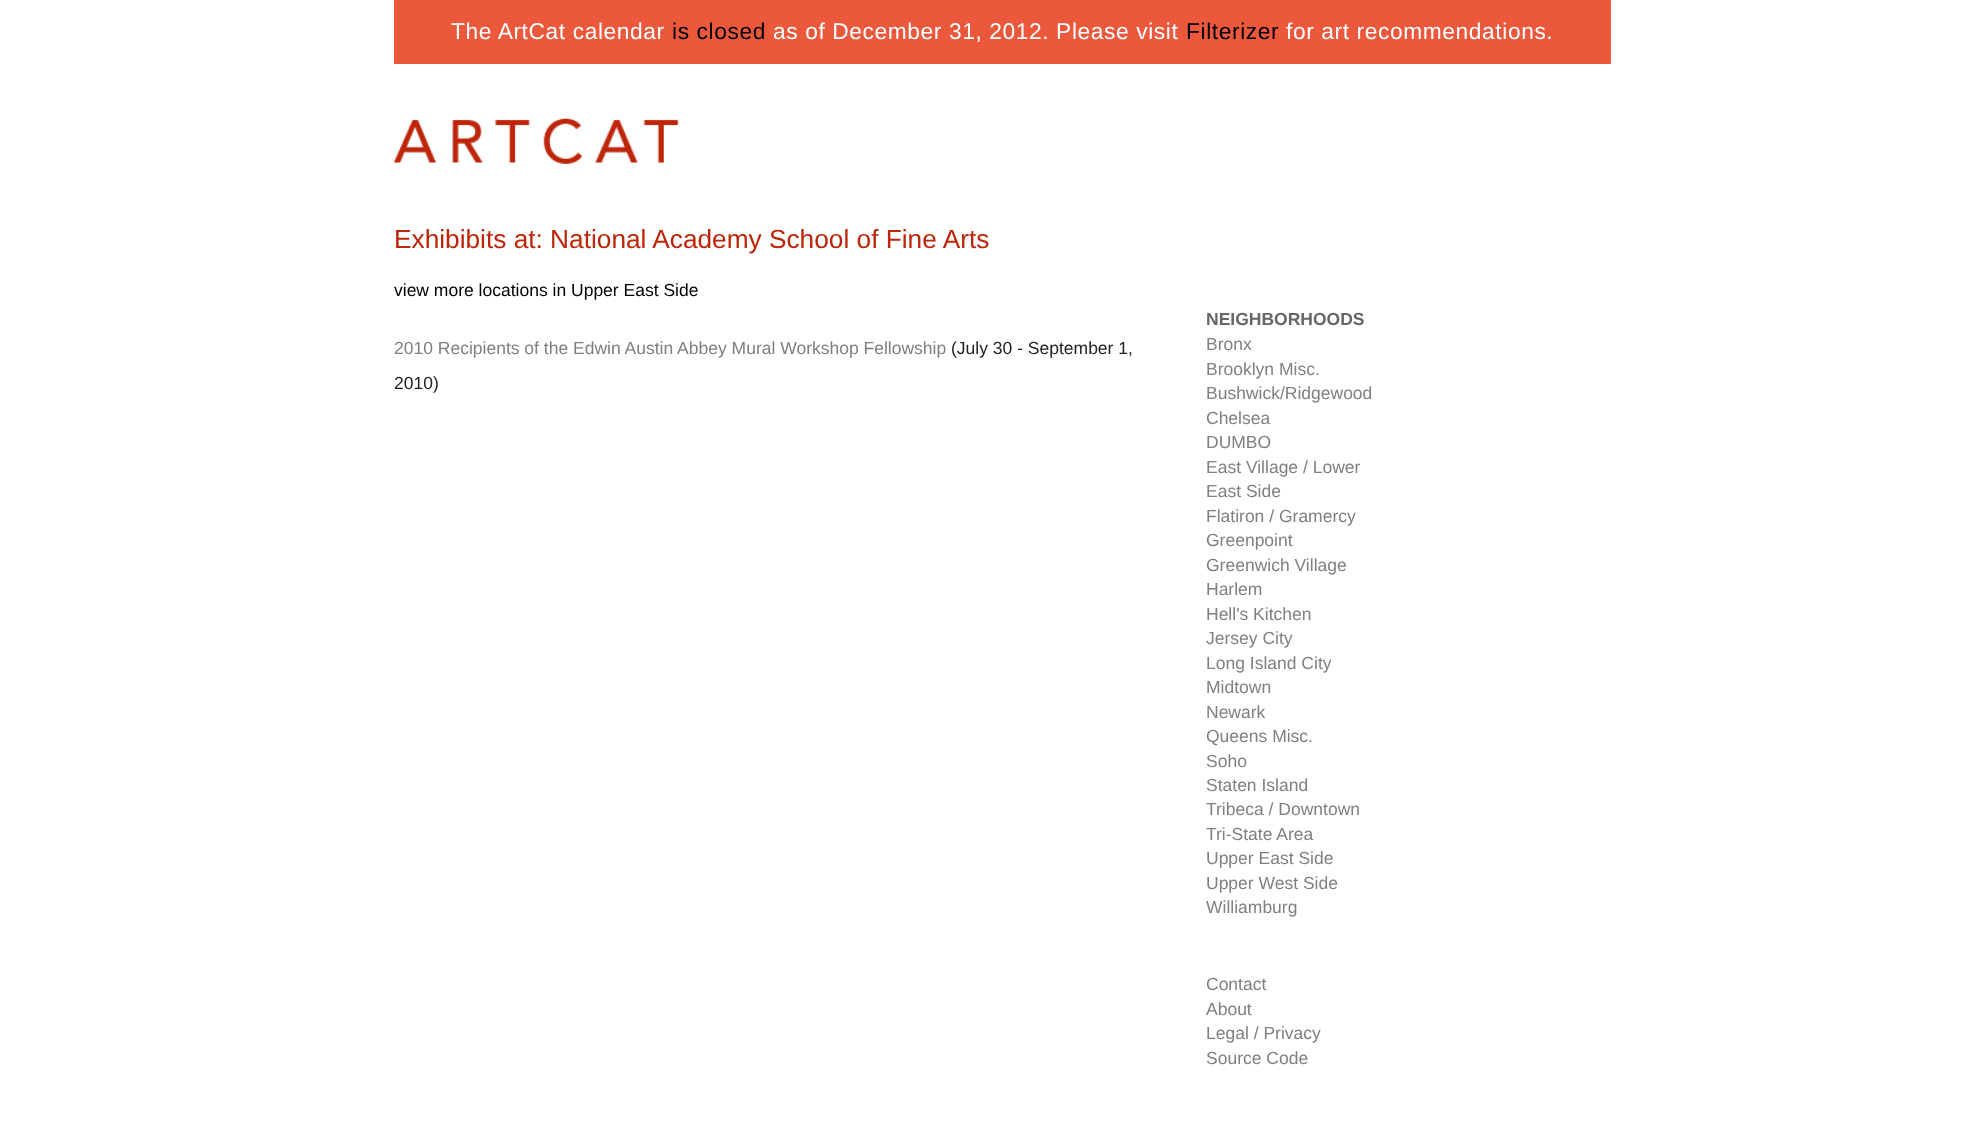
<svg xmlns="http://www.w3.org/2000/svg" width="1974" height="1137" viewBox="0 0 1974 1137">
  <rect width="100%" height="100%" fill="#ffffff"/>
  <rect x="394" y="0" width="1217" height="64" fill="#eb583c"/>
  <text x="451" y="39" font-family="Liberation Sans" font-size="22.75" letter-spacing="0.6" fill="#ffffff">The ArtCat calendar</text>
  <text x="672" y="39" font-family="Liberation Sans" font-size="22.75" letter-spacing="0.6" fill="#000000">is closed</text>
  <text x="773" y="39" font-family="Liberation Sans" font-size="22.75" letter-spacing="0.6" fill="#ffffff">as of December 31, 2012. Please visit</text>
  <text x="1186" y="39" font-family="Liberation Sans" font-size="22.75" letter-spacing="0.6" fill="#000000">Filterizer</text>
  <text x="1286" y="39" font-family="Liberation Sans" font-size="22.75" letter-spacing="0.6" fill="#ffffff">for art recommendations.</text>
  <image x="393" y="118" width="286" height="46" href="img1.png"/>
  <text x="394" y="248" font-family="Liberation Sans" font-size="26.25" fill="#bd2408">Exhibibits at: National Academy School of Fine Arts</text>
  <text x="394" y="296" font-family="Liberation Sans" font-size="17.5" fill="#000000">view more locations in Upper East Side</text>
  <text x="394" y="354" font-family="Liberation Sans" font-size="17.5" fill="#808080">2010 Recipients of the Edwin Austin Abbey Mural Workshop Fellowship</text>
  <text x="951" y="354" font-family="Liberation Sans" font-size="17.5" fill="#222222">(July 30 - September 1,</text>
  <text x="394" y="389" font-family="Liberation Sans" font-size="17.5" fill="#222222">2010)</text>
  <text x="1206" y="325" font-family="Liberation Sans" font-size="17.5" font-weight="bold" fill="#666666">NEIGHBORHOODS</text>
  <text x="1206" y="350" font-family="Liberation Sans" font-size="17.5" fill="#808080">Bronx</text>
  <text x="1206" y="375" font-family="Liberation Sans" font-size="17.5" fill="#808080">Brooklyn Misc.</text>
  <text x="1206" y="399" font-family="Liberation Sans" font-size="17.5" fill="#808080">Bushwick/Ridgewood</text>
  <text x="1206" y="424" font-family="Liberation Sans" font-size="17.5" fill="#808080">Chelsea</text>
  <text x="1206" y="448" font-family="Liberation Sans" font-size="17.5" fill="#808080">DUMBO</text>
  <text x="1206" y="473" font-family="Liberation Sans" font-size="17.5" fill="#808080">East Village / Lower</text>
  <text x="1206" y="497" font-family="Liberation Sans" font-size="17.5" fill="#808080">East Side</text>
  <text x="1206" y="522" font-family="Liberation Sans" font-size="17.5" fill="#808080">Flatiron / Gramercy</text>
  <text x="1206" y="546" font-family="Liberation Sans" font-size="17.5" fill="#808080">Greenpoint</text>
  <text x="1206" y="571" font-family="Liberation Sans" font-size="17.5" fill="#808080">Greenwich Village</text>
  <text x="1206" y="595" font-family="Liberation Sans" font-size="17.5" fill="#808080">Harlem</text>
  <text x="1206" y="620" font-family="Liberation Sans" font-size="17.5" fill="#808080">Hell's Kitchen</text>
  <text x="1206" y="644" font-family="Liberation Sans" font-size="17.5" fill="#808080">Jersey City</text>
  <text x="1206" y="669" font-family="Liberation Sans" font-size="17.5" fill="#808080">Long Island City</text>
  <text x="1206" y="693" font-family="Liberation Sans" font-size="17.5" fill="#808080">Midtown</text>
  <text x="1206" y="718" font-family="Liberation Sans" font-size="17.5" fill="#808080">Newark</text>
  <text x="1206" y="742" font-family="Liberation Sans" font-size="17.5" fill="#808080">Queens Misc.</text>
  <text x="1206" y="767" font-family="Liberation Sans" font-size="17.5" fill="#808080">Soho</text>
  <text x="1206" y="791" font-family="Liberation Sans" font-size="17.5" fill="#808080">Staten Island</text>
  <text x="1206" y="815" font-family="Liberation Sans" font-size="17.5" fill="#808080">Tribeca / Downtown</text>
  <text x="1206" y="840" font-family="Liberation Sans" font-size="17.5" fill="#808080">Tri-State Area</text>
  <text x="1206" y="864" font-family="Liberation Sans" font-size="17.5" fill="#808080">Upper East Side</text>
  <text x="1206" y="889" font-family="Liberation Sans" font-size="17.5" fill="#808080">Upper West Side</text>
  <text x="1206" y="913" font-family="Liberation Sans" font-size="17.5" fill="#808080">Williamburg</text>
  <text x="1206" y="990" font-family="Liberation Sans" font-size="17.5" fill="#808080">Contact</text>
  <text x="1206" y="1015" font-family="Liberation Sans" font-size="17.5" fill="#808080">About</text>
  <text x="1206" y="1039" font-family="Liberation Sans" font-size="17.5" fill="#808080">Legal / Privacy</text>
  <text x="1206" y="1064" font-family="Liberation Sans" font-size="17.5" fill="#808080">Source Code</text>
</svg>
